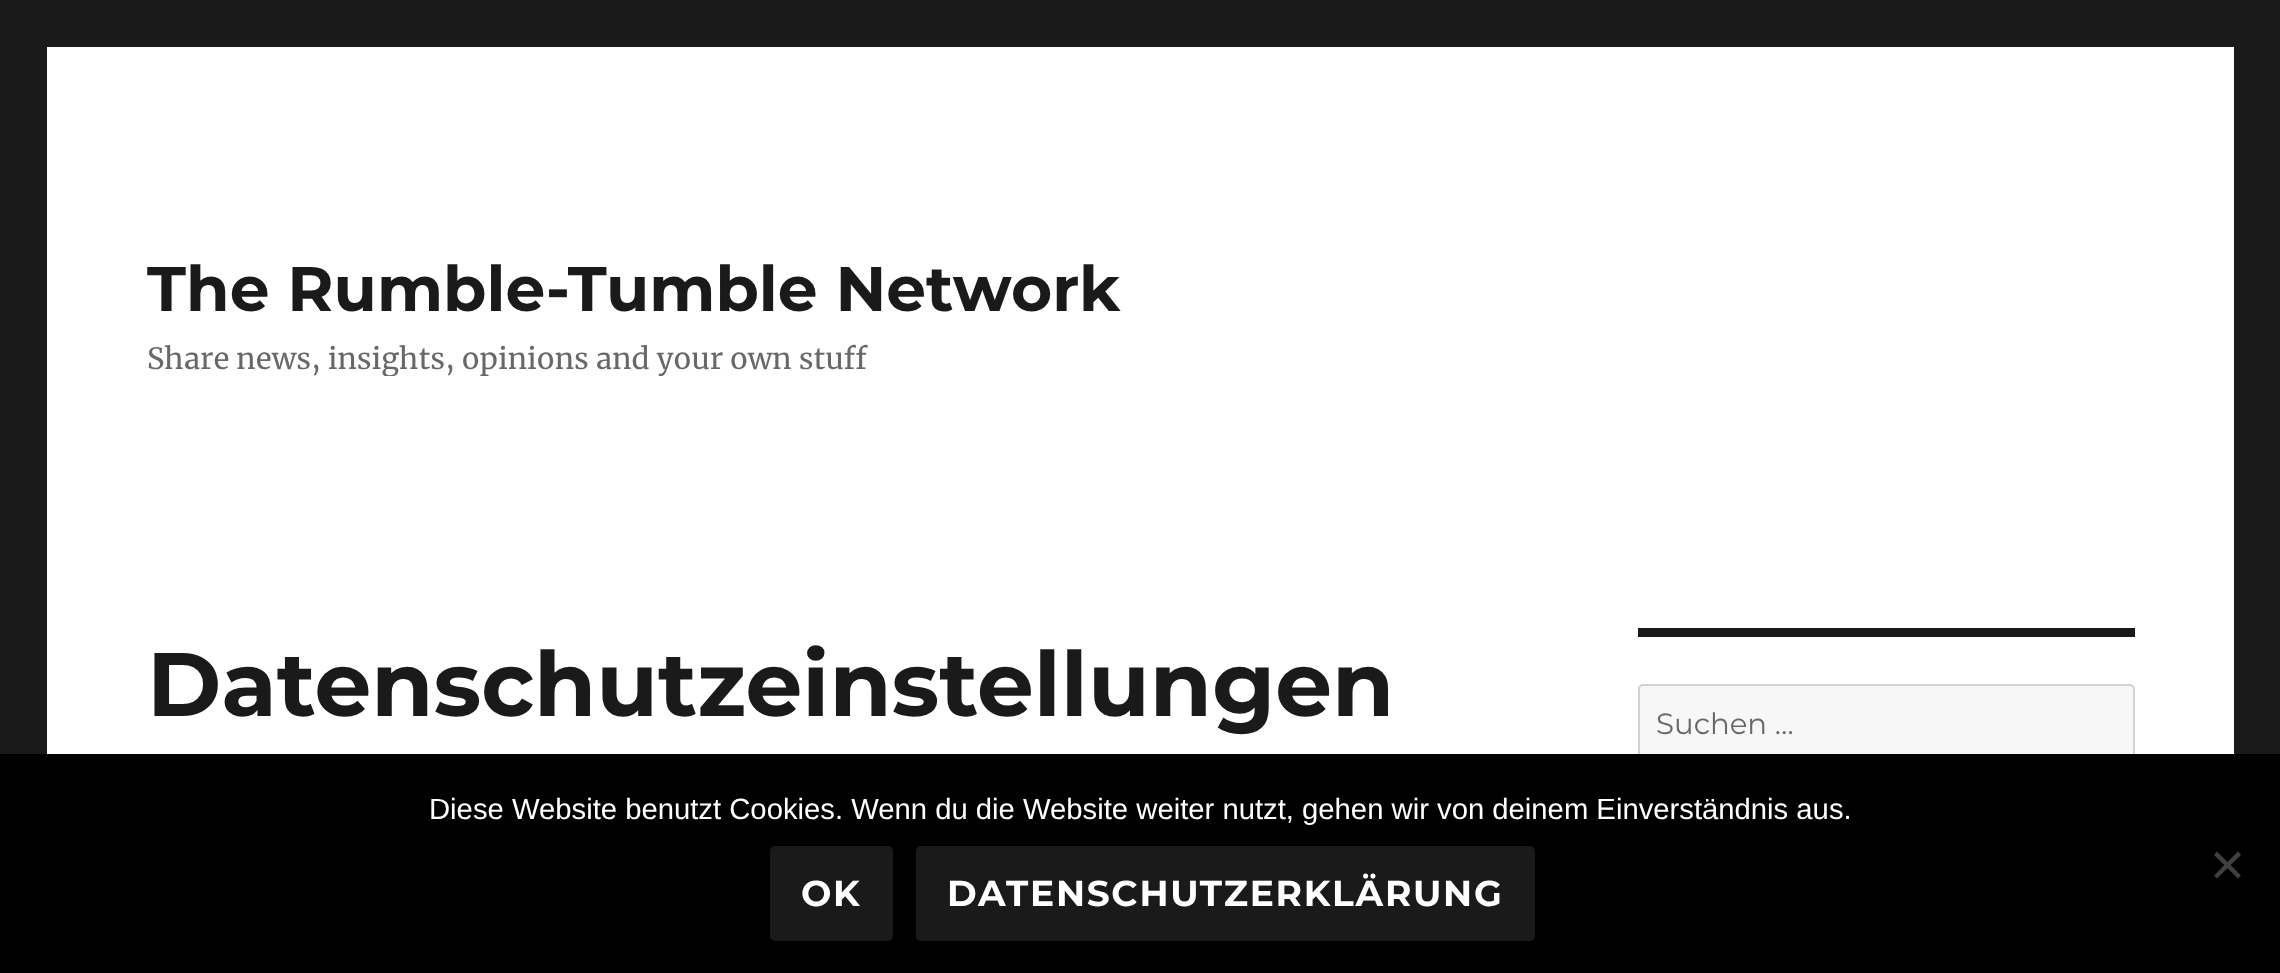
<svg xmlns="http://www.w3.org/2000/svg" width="2280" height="973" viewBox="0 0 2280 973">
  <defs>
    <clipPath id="clip1"><rect x="146" y="250" width="975" height="126"/></clipPath>
  </defs>
  <rect width="100%" height="100%" fill="#1a1a1a"/>
  <rect x="47" y="47" width="2187" height="707" fill="#ffffff"/>
  <text x="147" y="311" font-family="Montserrat" font-size="63" font-weight="100" fill="#1a1a1a">The Rumble-Tumble Network</text>
  <g clip-path="url(#clip1)">
    <text x="147" y="369" font-family="Merriweather" font-size="29.25" fill="#686868">Share news, insights, opinions and your own stuff</text>
  </g>
  <text x="147" y="716" font-family="Montserrat" font-size="90" font-weight="100" fill="#1a1a1a">Datenschutzeinstellungen</text>
  <rect x="1638" y="628" width="497" height="9" fill="#1a1a1a"/>
  <rect x="1639" y="685" width="495" height="77" rx="4" fill="#f7f7f7" stroke="#d1d1d1" stroke-width="2"/>
  <text x="1656" y="734" font-family="'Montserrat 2'" font-size="29.25" font-weight="100" fill="#686868">Suchen …</text>
  <rect x="0" y="754" width="2280" height="219" fill="#000000"/>
  <text x="429" y="819" font-family="Liberation Sans" font-size="29.25" fill="#ffffff">Diese Website benutzt Cookies. Wenn du die Website weiter nutzt, gehen wir von deinem Einverständnis aus.</text>
  <path d="M2238 851.5L2241 855L2217 878.5L2214 875.5Z" fill="#404040"/>
  <path d="M2214 855L2217 851.5L2241 875.5L2238 878.5Z" fill="#404040"/>
  <rect x="770" y="846" width="123" height="95" rx="5" fill="#1a1a1a"/>
  <text x="801" y="906" font-family="Montserrat" font-size="36" font-weight="100" letter-spacing="1.7" fill="#ffffff">OK</text>
  <rect x="916" y="846" width="619" height="95" rx="5" fill="#1a1a1a"/>
  <text x="947" y="906" font-family="Montserrat" font-size="36" font-weight="100" letter-spacing="1.7" fill="#ffffff">DATENSCHUTZERKLÄRUNG</text>
</svg>
